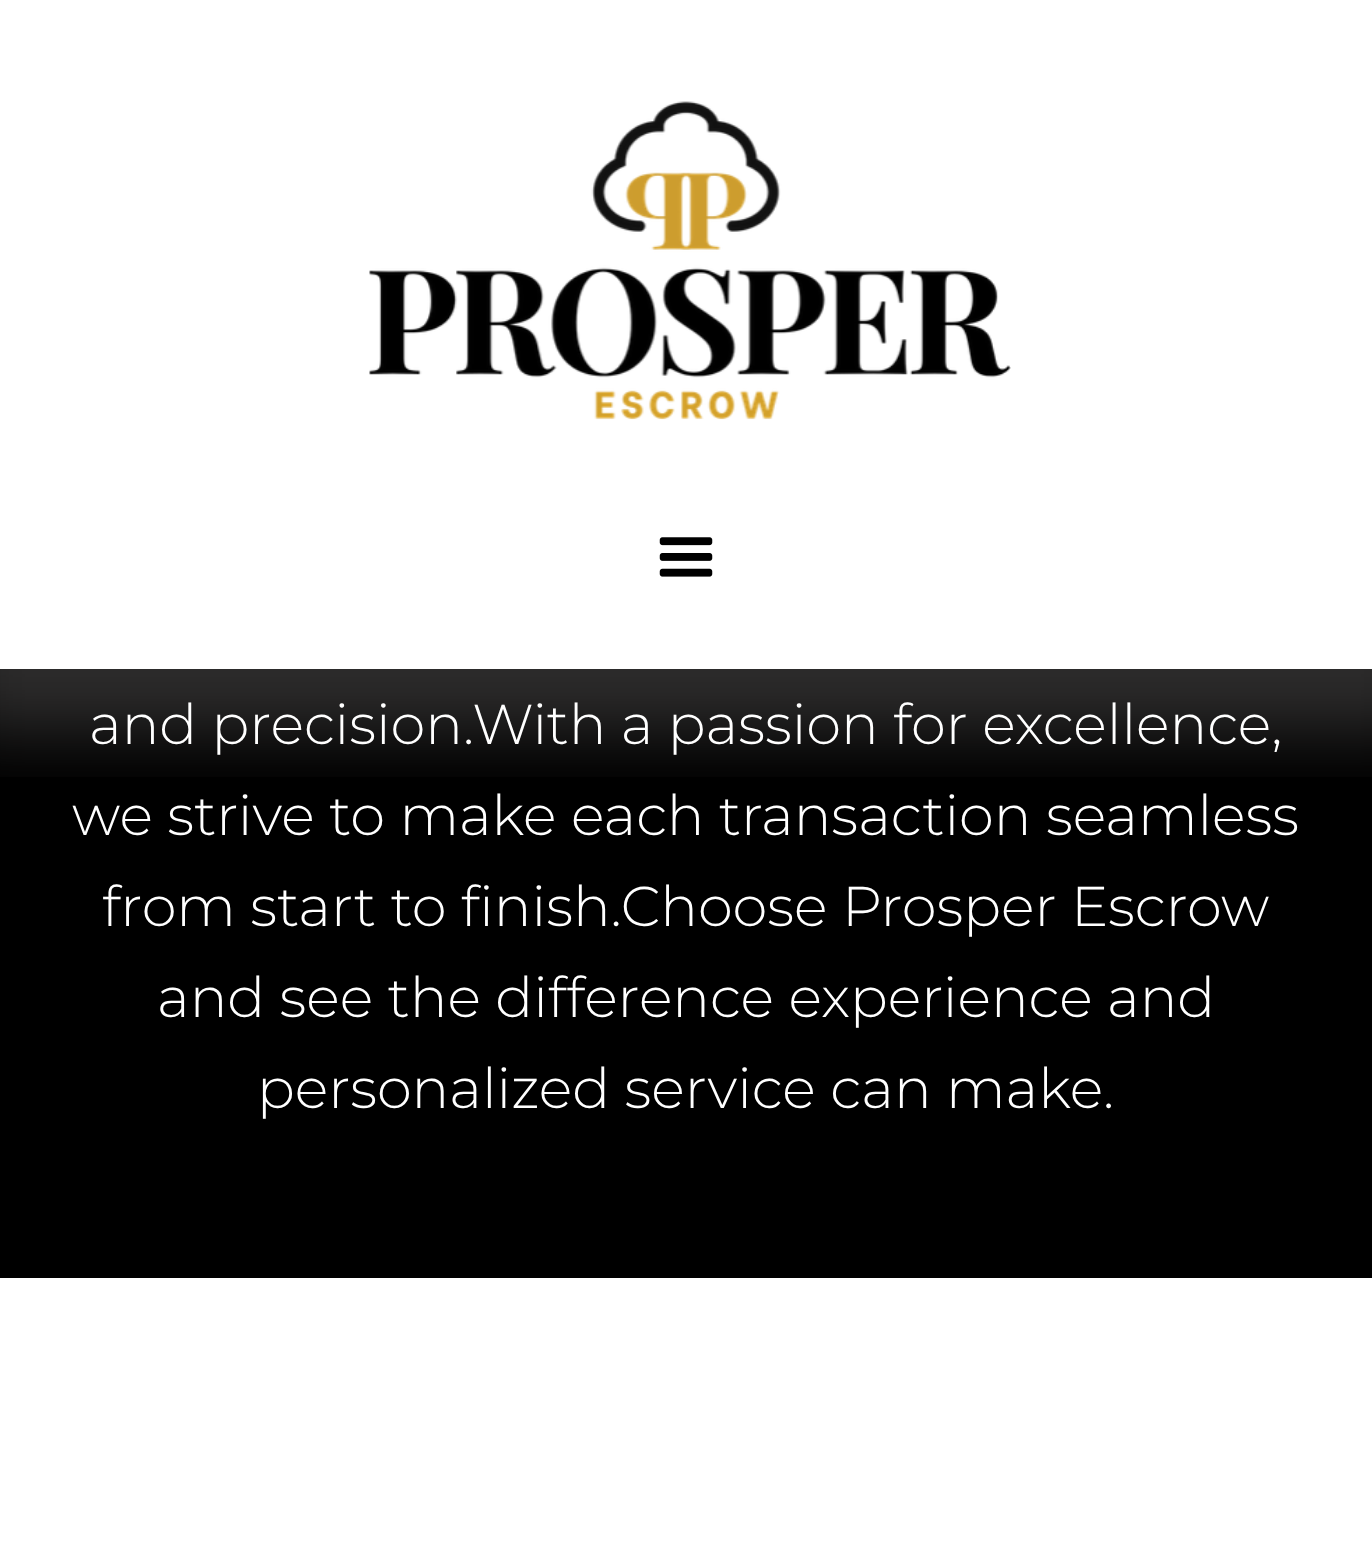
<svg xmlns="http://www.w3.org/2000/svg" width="1372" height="1560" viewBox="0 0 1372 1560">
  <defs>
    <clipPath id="clip1"><rect x="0" y="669" width="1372" height="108"/></clipPath>
    <filter id="blur1" x="-50%" y="-200%" width="200%" height="500%"><feGaussianBlur stdDeviation="35"/></filter>
  </defs>
  <rect width="100%" height="100%" fill="#ffffff"/>
  <rect x="0" y="669" width="1372" height="609" fill="#000000"/>
  <g clip-path="url(#clip1)">
    <rect x="-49" y="-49" width="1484" height="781" fill="#dfdede" fill-opacity="0.2" filter="url(#blur1)"/>
  </g>
  <image x="369" y="101" width="642" height="319" href="img1.png"/>
  <rect x="0" y="668" width="1372" height="1" fill="#ffffff"/>
  <image x="659" y="537" width="54" height="40" href="img2.png"/>
  <text x="89" y="744" font-family="Montserrat" font-size="56" font-weight="300" fill="#ffffff">and precision.With a passion for excellence,</text>
  <text x="72" y="835" font-family="Montserrat" font-size="56" font-weight="300" fill="#ffffff">we strive to make each transaction seamless</text>
  <text x="102" y="926" font-family="Montserrat" font-size="56" font-weight="300" fill="#ffffff">from start to finish.Choose Prosper Escrow</text>
  <text x="157" y="1017" font-family="Montserrat" font-size="56" font-weight="300" fill="#ffffff">and see the difference experience and</text>
  <text x="257" y="1108" font-family="Montserrat" font-size="56" font-weight="300" fill="#ffffff">personalized service can make.</text>
</svg>
